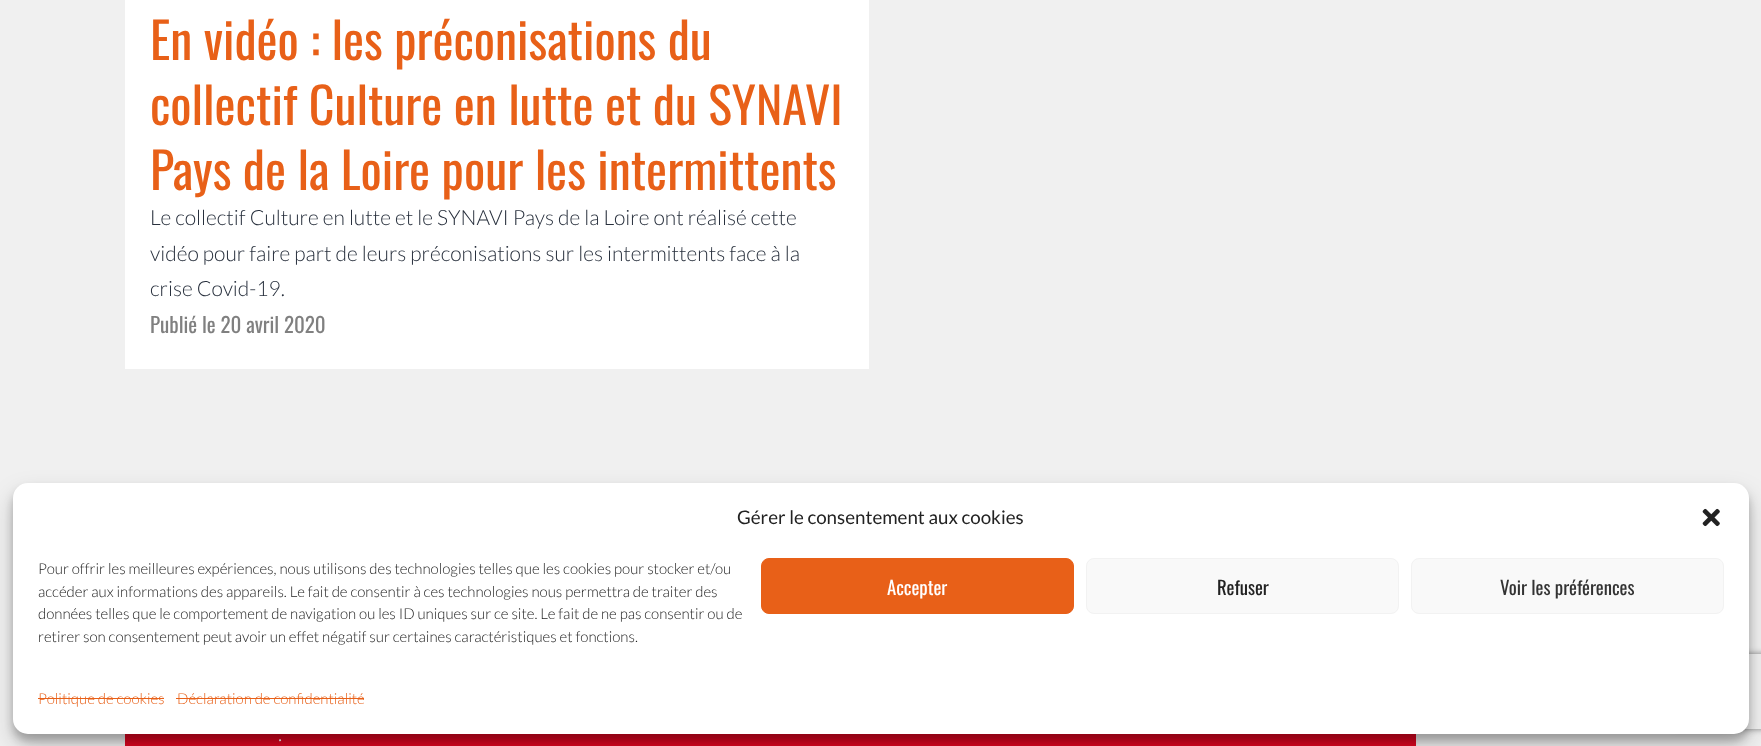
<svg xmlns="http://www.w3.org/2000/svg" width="1761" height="746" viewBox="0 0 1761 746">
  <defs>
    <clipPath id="clip1"><path d="M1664 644H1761V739H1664ZM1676.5 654H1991.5C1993 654 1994 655 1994 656.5V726.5C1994 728 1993 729 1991.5 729H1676.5C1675 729 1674 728 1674 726.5V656.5C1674 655 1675 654 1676.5 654Z" clip-rule="evenodd"/></clipPath>
    <filter id="blur1" x="-50%" y="-200%" width="200%" height="500%"><feGaussianBlur stdDeviation="3"/></filter>
    <filter id="blur2" x="-50%" y="-200%" width="200%" height="500%"><feGaussianBlur stdDeviation="4"/></filter>
    <filter id="blur3" x="-50%" y="-200%" width="200%" height="500%"><feGaussianBlur stdDeviation="12.5"/></filter>
  </defs>
  <rect width="100%" height="100%" fill="#f0f0f0"/>
  <rect x="125" y="0" width="744" height="369" fill="#ffffff"/>
  <text x="150" y="60" font-family="Oswald" font-size="50" fill="#e86018">En vidéo : les préconisations du</text>
  <text x="150" y="125" font-family="Oswald" font-size="50" fill="#e86018">collectif Culture en lutte et du SYNAVI</text>
  <text x="150" y="190" font-family="Oswald" font-size="50" fill="#e86018">Pays de la Loire pour les intermittents</text>
  <text x="150" y="225" font-family="Lato" font-size="21" font-weight="300" fill="#28303d">Le collectif Culture en lutte et le SYNAVI Pays de la Loire ont réalisé cette</text>
  <text x="150" y="261" font-family="Lato" font-size="21" font-weight="300" fill="#28303d">vidéo pour faire part de leurs préconisations sur les intermittents face à la</text>
  <text x="150" y="296" font-family="Lato" font-size="21" font-weight="300" fill="#28303d">crise Covid-19.</text>
  <text x="150" y="333" font-family="Oswald" font-size="21" fill="#808080">Publié le 20 avril 2020</text>
  <g clip-path="url(#clip1)">
    <rect x="1674" y="654" width="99" height="75" rx="2.5" fill="#808080" filter="url(#blur1)"/>
  </g>
  <rect x="125" y="734" width="1291" height="12" fill="#de0520"/>
  <text x="278" y="741" font-family="Lato" font-size="21" font-weight="300" fill="#ffffff">.</text>
  <rect x="13" y="490" width="1736" height="251" rx="15" fill="#000000" fill-opacity="0.23" filter="url(#blur2)"/>
  <rect x="13" y="495" width="1736" height="251" rx="15" fill="#000000" fill-opacity="0.19" filter="url(#blur3)"/>
  <rect x="13" y="483" width="1736" height="251" rx="15" fill="#ffffff"/>
  <text x="737" y="524" font-family="Lato" font-size="18.75" fill="#222222">Gérer le consentement aux cookies</text>
  <image x="1702" y="508" width="18" height="19" href="img1.png"/>
  <text x="38" y="574" font-family="Lato" font-size="15" font-weight="300" fill="#222222">Pour offrir les meilleures expériences, nous utilisons des technologies telles que les cookies pour stocker et/ou</text>
  <text x="38" y="597" font-family="Lato" font-size="15" font-weight="300" fill="#222222">accéder aux informations des appareils. Le fait de consentir à ces technologies nous permettra de traiter des</text>
  <text x="38" y="619" font-family="Lato" font-size="15" font-weight="300" fill="#222222">données telles que le comportement de navigation ou les ID uniques sur ce site. Le fait de ne pas consentir ou de</text>
  <text x="38" y="642" font-family="Lato" font-size="15" font-weight="300" fill="#222222">retirer son consentement peut avoir un effet négatif sur certaines caractéristiques et fonctions.</text>
  <rect x="761.5" y="558.5" width="312" height="55" rx="7.5" fill="#e86018" stroke="#e86018"/>
  <text x="887" y="595" font-family="Oswald" font-size="18.75" fill="#ffffff">Accepter</text>
  <rect x="1086.5" y="558.5" width="312" height="55" rx="7.5" fill="#f9f9f9" stroke="#f2f2f2"/>
  <text x="1217" y="595" font-family="Oswald" font-size="18.75" fill="#222222">Refuser</text>
  <rect x="1411.5" y="558.5" width="312" height="55" rx="7.5" fill="#f9f9f9" stroke="#f2f2f2"/>
  <text x="1500" y="595" font-family="Oswald" font-size="18.75" fill="#333333">Voir les préférences</text>
  <rect x="38" y="698" width="126" height="1" fill="#e86018"/>
  <text x="38" y="704" font-family="Lato" font-size="15" font-weight="300" fill="#e86018">Politique de cookies</text>
  <rect x="176" y="698" width="188" height="1" fill="#e86018"/>
  <text x="177" y="704" font-family="Lato" font-size="15" font-weight="300" fill="#e86018">Déclaration de confidentialité</text>
</svg>
